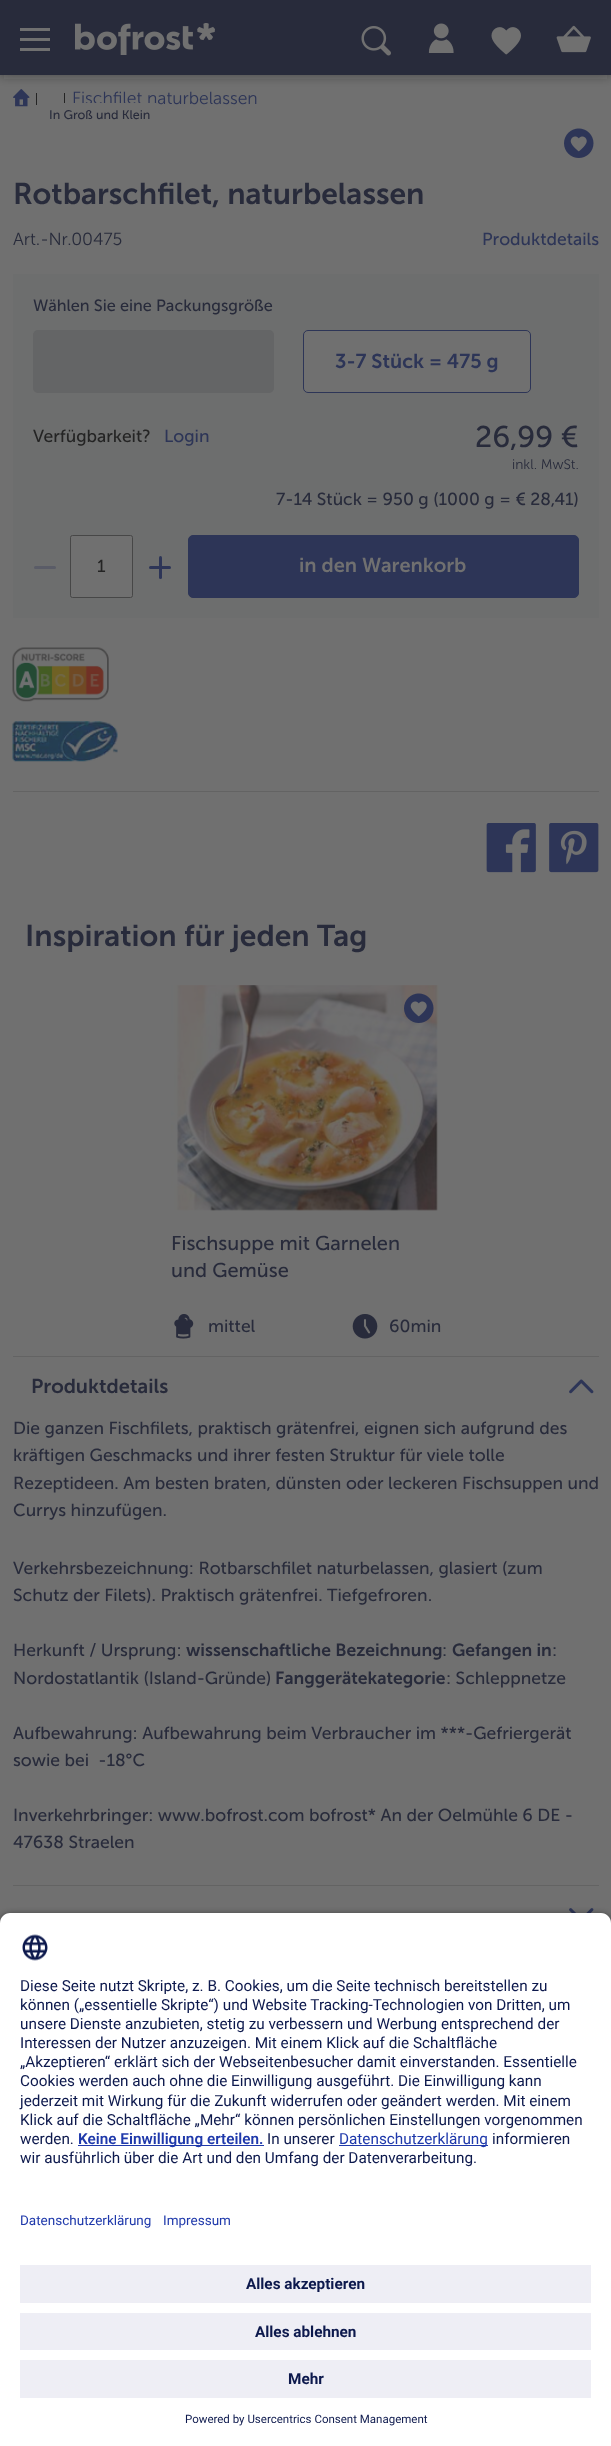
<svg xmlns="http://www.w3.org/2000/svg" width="611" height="2446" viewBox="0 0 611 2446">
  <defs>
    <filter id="blur1" x="-50%" y="-200%" width="200%" height="500%"><feGaussianBlur stdDeviation="6"/></filter>
    <filter id="blur2" x="-50%" y="-200%" width="200%" height="500%"><feGaussianBlur stdDeviation="4.5"/></filter>
  </defs>
  <rect width="100%" height="100%" fill="#707070"/>
  <image x="13" y="89" width="17" height="18" href="img6.png"/>
  <rect x="36" y="93" width="1" height="12" fill="#242424"/>
  <rect x="64" y="93" width="1" height="12" fill="#242424"/>
  <rect x="0" y="0" width="611" height="75" fill="#242424" fill-opacity="0.5" filter="url(#blur1)"/>
  <rect x="0" y="0" width="611" height="75" fill="#282b3b"/>
  <rect x="20" y="28" width="30" height="3" fill="#707070"/>
  <rect x="20" y="38" width="30" height="3" fill="#707070"/>
  <rect x="20" y="48" width="30" height="3" fill="#707070"/>
  <image x="75" y="23" width="140" height="32" href="img1.png"/>
  <image x="361" y="26" width="30" height="30" href="img2.png"/>
  <image x="428" y="23" width="26" height="30" href="img3.png"/>
  <image x="491" y="27" width="30" height="28" href="img4.png"/>
  <image x="556" y="25" width="35" height="28" href="img5.png"/>
  <text x="72" y="104" font-family="Museo Sans" font-size="17.5" font-weight="300" fill="#2d3557">Fischfilet naturbelassen</text>
  <rect x="64" y="103" width="92" height="2" fill="#707070"/>
  <text x="49" y="119" font-family="Museo Sans" font-size="12.5" fill="#282b3b">In Groß und Klein</text>
  <image x="564" y="128" width="30" height="30" href="img7.png"/>
  <text x="13" y="204" font-family="Museo Sans" font-size="30" font-weight="600" fill="#282b3b">Rotbarschfilet, naturbelassen</text>
  <text x="13" y="245" font-family="Museo Sans" font-size="17.5" font-weight="300" fill="#282b3b">Art.-Nr.00475</text>
  <text x="482" y="245" font-family="Museo Sans" font-size="17.5" fill="#2d3557">Produktdetails</text>
  <rect x="13" y="274" width="586" height="344" fill="#6d6e6e"/>
  <text x="33" y="311" font-family="Museo Sans" font-size="16.25" fill="#282b3b">Wählen Sie eine Packungsgröße</text>
  <rect x="33" y="330" width="241" height="63" rx="5" fill="#646566"/>
  <rect x="303.5" y="330.5" width="227" height="62" rx="4.5" fill="#707070" stroke="#2d3557"/>
  <text x="335" y="368" font-family="Museo Sans" font-size="20" font-weight="600" fill="#2d3557">3-7 Stück = 475 g</text>
  <text x="33" y="442" font-family="Museo Sans" font-size="17.5" fill="#242424">Verfügbarkeit?</text>
  <text x="164" y="442" font-family="Museo Sans" font-size="17.5" fill="#2d3557">Login</text>
  <text x="475" y="447" font-family="Museo Sans" font-size="30" fill="#282b3b">26,99 €</text>
  <text x="512" y="469" font-family="Museo Sans" font-size="13.75" font-weight="300" fill="#282b3b">inkl. MwSt.</text>
  <text x="276" y="505" font-family="Museo Sans" font-size="17.5" fill="#282b3b">7-14 Stück = 950 g (1000 g = € 28,41)</text>
  <rect x="34" y="566" width="22" height="3" rx="1.5" fill="#5a5c67"/>
  <rect x="70.5" y="535.5" width="62" height="62" rx="2" fill="#707070" stroke="#474747"/>
  <text x="97" y="572" font-family="Museo Sans" font-size="17.5" fill="#242424">1</text>
  <rect x="159" y="556" width="3" height="23" rx="1.5" fill="#2d3557"/>
  <rect x="149" y="566" width="22" height="3" rx="1.5" fill="#2d3557"/>
  <rect x="188.5" y="535.5" width="390" height="62" rx="4.5" fill="#2d3557" stroke="#2d3557"/>
  <text x="299" y="572" font-family="Museo Sans" font-size="20" font-weight="600" fill="#707070">in den Warenkorb</text>
  <image x="12" y="647" width="97" height="55" href="img8.png"/>
  <image x="12" y="721" width="106" height="41" href="img9.png"/>
  <rect x="13" y="791" width="586" height="1" fill="#636363"/>
  <image x="486" y="823" width="50" height="50" href="img10.png"/>
  <image x="549" y="823" width="50" height="50" href="img11.png"/>
  <text x="25" y="946" font-family="Museo Sans" font-size="30" font-weight="600" fill="#282b3b">Inspiration für jeden Tag</text>
  <image x="171" y="985" width="268" height="226" href="img12.png"/>
  <circle cx="418" cy="1008" r="13" fill="#707070"/>
  <image x="404" y="993" width="30" height="30" href="img13.png"/>
  <text x="171" y="1250" font-family="Museo Sans" font-size="20" fill="#282b3b">Fischsuppe mit Garnelen</text>
  <text x="171" y="1277" font-family="Museo Sans" font-size="20" fill="#282b3b">und Gemüse</text>
  <image x="174" y="1314" width="20" height="25" href="img14.png"/>
  <text x="208" y="1332" font-family="Museo Sans" font-size="17.5" fill="#282b3b">mittel</text>
  <image x="352" y="1314" width="26" height="25" href="img15.png"/>
  <text x="389" y="1332" font-family="Museo Sans" font-size="17.5" fill="#282b3b">60min</text>
  <rect x="13" y="1356" width="586" height="1" fill="#636363"/>
  <text x="31" y="1393" font-family="Museo Sans" font-size="20" font-weight="600" fill="#282b3b">Produktdetails</text>
  <image x="569" y="1379" width="25" height="15" href="img16.png"/>
  <text x="13" y="1434" font-family="Museo Sans" font-size="17.5" fill="#282b3b">Die ganzen Fischfilets, praktisch grätenfrei, eignen sich aufgrund des</text>
  <text x="13" y="1461" font-family="Museo Sans" font-size="17.5" fill="#282b3b">kräftigen Geschmacks und ihrer festen Struktur für viele tolle</text>
  <text x="13" y="1489" font-family="Museo Sans" font-size="17.5" fill="#282b3b">Rezeptideen. Am besten braten, dünsten oder leckeren Fischsuppen und</text>
  <text x="13" y="1516" font-family="Museo Sans" font-size="17.5" fill="#282b3b">Currys hinzufügen.</text>
  <text x="13" y="1574" font-family="Museo Sans" font-size="17.5" fill="#282b3b">Verkehrsbezeichnung: Rotbarschfilet naturbelassen, glasiert (zum</text>
  <text x="13" y="1601" font-family="Museo Sans" font-size="17.5" fill="#282b3b">Schutz der Filets). Praktisch grätenfrei. Tiefgefroren.</text>
  <text x="13" y="1656" font-family="Museo Sans" font-size="17.5" fill="#282b3b">Herkunft / Ursprung:</text>
  <text x="186" y="1656" font-family="Museo Sans" font-size="17.5" font-weight="600" fill="#282b3b">wissenschaftliche Bezeichnung</text>
  <text x="442" y="1656" font-family="Museo Sans" font-size="17.5" fill="#282b3b">:</text>
  <text x="452" y="1656" font-family="Museo Sans" font-size="17.5" font-weight="600" fill="#282b3b">Gefangen in</text>
  <text x="552" y="1656" font-family="Museo Sans" font-size="17.5" fill="#282b3b">:</text>
  <text x="13" y="1684" font-family="Museo Sans" font-size="17.5" fill="#282b3b">Nordostatlantik (Island-Gründe)</text>
  <text x="275" y="1684" font-family="Museo Sans" font-size="17.5" font-weight="600" fill="#282b3b">Fanggerätekategorie</text>
  <text x="446" y="1684" font-family="Museo Sans" font-size="17.5" fill="#282b3b">: Schleppnetze</text>
  <text x="13" y="1739" font-family="Museo Sans" font-size="17.5" fill="#282b3b">Aufbewahrung: Aufbewahrung beim Verbraucher im ***-Gefriergerät</text>
  <text x="13" y="1766" font-family="Museo Sans" font-size="17.5" fill="#282b3b" xml:space="preserve">sowie bei  -18°C</text>
  <text x="13" y="1821" font-family="Museo Sans" font-size="17.5" fill="#282b3b">Inverkehrbringer: www.bofrost.com bofrost* An der Oelmühle 6 DE -</text>
  <text x="13" y="1848" font-family="Museo Sans" font-size="17.5" fill="#282b3b">47638 Straelen</text>
  <rect x="13" y="1885" width="586" height="1" fill="#636363"/>
  <image x="569" y="1908" width="25" height="5" href="img17.png"/>
  <rect x="0" y="1916" width="611" height="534" rx="10" fill="#000000" fill-opacity="0.8" filter="url(#blur2)"/>
  <path d="M10 1913H601C606.5 1913 611 1917.5 611 1923V2194H0V1923C0 1917.5 4.5 1913 10 1913Z" fill="#ffffff"/>
  <image x="22" y="1934" width="26" height="27" href="img18.png"/>
  <text x="20" y="1991" font-family="Roboto" font-size="15.3" fill="#0d194d">Diese Seite nutzt Skripte, z. B. Cookies, um die Seite technisch bereitstellen zu</text>
  <text x="20" y="2010" font-family="Roboto" font-size="15.3" fill="#0d194d">können („essentielle Skripte“) und Website Tracking-Technologien von Dritten, um</text>
  <text x="20" y="2029" font-family="Roboto" font-size="15.3" fill="#0d194d">unsere Dienste anzubieten, stetig zu verbessern und Werbung entsprechend der</text>
  <text x="20" y="2048" font-family="Roboto" font-size="15.3" fill="#0d194d">Interessen der Nutzer anzuzeigen. Mit einem Klick auf die Schaltfläche</text>
  <text x="20" y="2067" font-family="Roboto" font-size="15.3" fill="#0d194d">„Akzeptieren“ erklärt sich der Webseitenbesucher damit einverstanden. Essentielle</text>
  <text x="20" y="2086" font-family="Roboto" font-size="15.3" fill="#0d194d">Cookies werden auch ohne die Einwilligung ausgeführt. Die Einwilligung kann</text>
  <text x="20" y="2106" font-family="Roboto" font-size="15.3" fill="#0d194d">jederzeit mit Wirkung für die Zukunft widerrufen oder geändert werden. Mit einem</text>
  <text x="20" y="2125" font-family="Roboto" font-size="15.3" fill="#0d194d">Klick auf die Schaltfläche „Mehr“ können persönlichen Einstellungen vorgenommen</text>
  <text x="20" y="2144" font-family="Roboto" font-size="15.3" fill="#0d194d">werden.</text>
  <rect x="78" y="2145" width="186" height="1" fill="#1f39ab"/>
  <text x="78" y="2144" font-family="Roboto" font-size="15.3" font-weight="600" fill="#1f39ab">Keine Einwilligung erteilen.</text>
  <text x="267" y="2144" font-family="Roboto" font-size="15.3" fill="#0d194d">In unserer</text>
  <rect x="339" y="2145" width="149" height="1" fill="#1f39ab"/>
  <text x="339" y="2144" font-family="Roboto" font-size="15.3" fill="#1f39ab">Datenschutzerklärung</text>
  <text x="492" y="2144" font-family="Roboto" font-size="15.3" fill="#0d194d">informieren</text>
  <text x="20" y="2163" font-family="Roboto" font-size="15.3" fill="#0d194d">wir ausführlich über die Art und den Umfang der Datenverarbeitung.</text>
  <rect x="0" y="2194" width="611" height="252" fill="#ffffff"/>
  <text x="20" y="2225" font-family="Roboto" font-size="13.5" fill="#1f39ab">Datenschutzerklärung</text>
  <text x="163" y="2225" font-family="Roboto" font-size="13.5" fill="#1f39ab">Impressum</text>
  <rect x="20" y="2265" width="571" height="38" fill="#eeeef5"/>
  <text x="246" y="2289" font-family="Roboto" font-size="15.3" font-weight="bold" fill="#0d194d">Alles akzeptieren</text>
  <rect x="20" y="2313" width="571" height="37" fill="#eeeef5"/>
  <text x="255" y="2337" font-family="Roboto" font-size="15.3" font-weight="bold" fill="#0d194d">Alles ablehnen</text>
  <rect x="20" y="2360" width="571" height="38" fill="#eeeef5"/>
  <text x="288" y="2384" font-family="Roboto" font-size="15.3" font-weight="bold" fill="#0d194d">Mehr</text>
  <text x="185" y="2423" font-family="Roboto" font-size="11.5" fill="#0d194d">Powered by Usercentrics Consent Management</text>
</svg>
